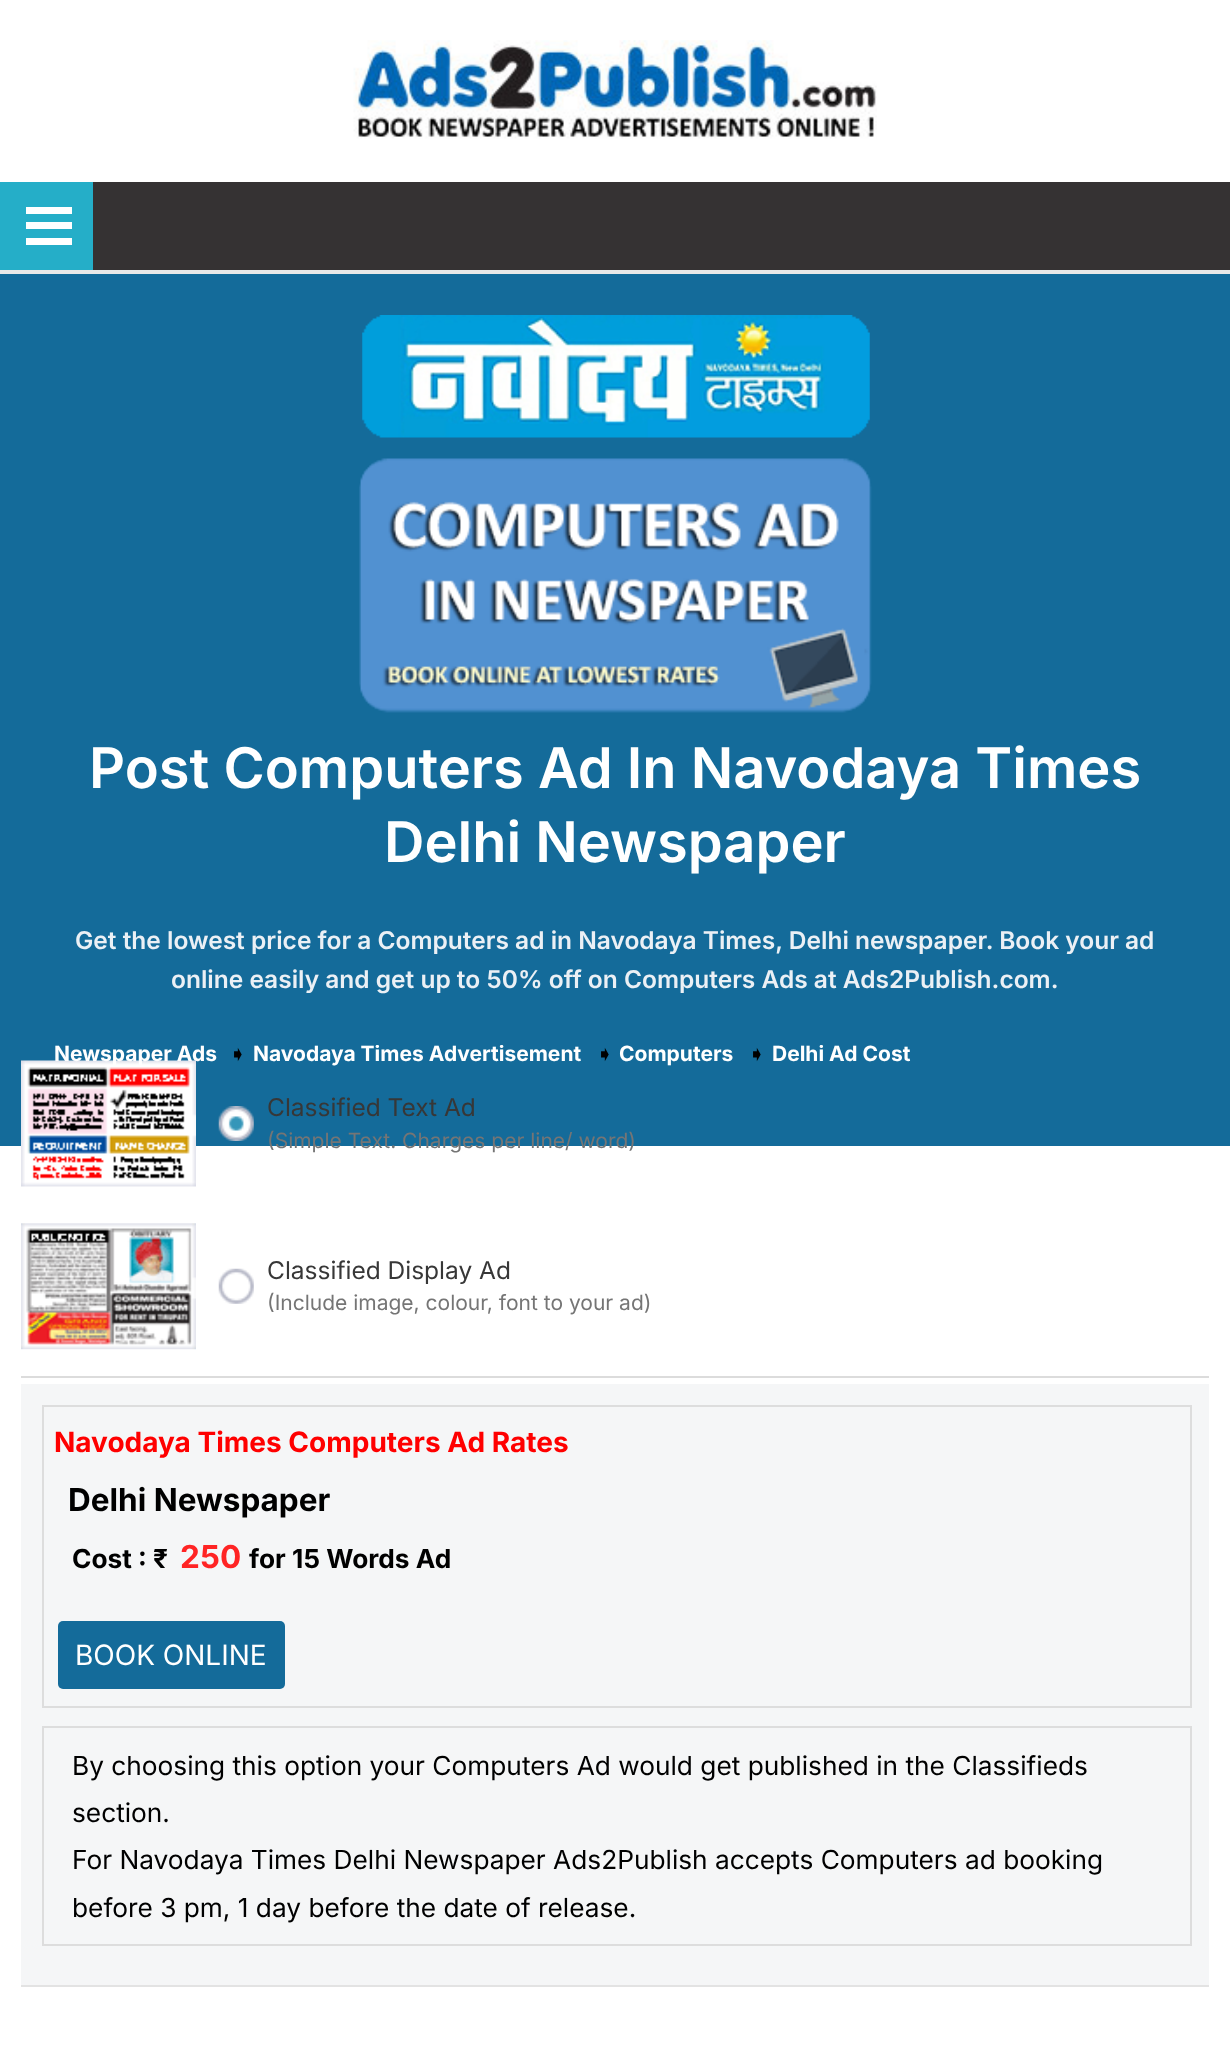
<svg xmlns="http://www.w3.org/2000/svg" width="1230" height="2048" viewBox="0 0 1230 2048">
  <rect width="100%" height="100%" fill="#ffffff"/>
  <image x="353" y="40" width="524" height="99" href="img1.png"/>
  <rect x="93" y="182" width="1137" height="88" fill="#353233"/>
  <rect x="0" y="182" width="93" height="88" fill="#25aec8"/>
  <rect x="26" y="207" width="46" height="7" fill="#ffffff"/>
  <rect x="26" y="222" width="46" height="7" fill="#ffffff"/>
  <rect x="26" y="238" width="46" height="7" fill="#ffffff"/>
  <rect x="0" y="274" width="1230" height="872" fill="#146b9a"/>
  <rect x="0" y="270" width="1230" height="4" fill="#e8e8e8"/>
  <image x="362" y="315" width="508" height="123" href="img2.png"/>
  <image x="359" y="458" width="513" height="255" href="img3.png"/>
  <text x="89" y="788" font-family="Inter" font-size="56" font-weight="600" fill="#ffffff">Post Computers Ad In Navodaya Times</text>
  <text x="384" y="862" font-family="Inter" font-size="56" font-weight="600" fill="#ffffff">Delhi Newspaper</text>
  <text x="75" y="949" font-family="Inter" font-size="24.5" font-weight="600" fill="#ebf0f5">Get the lowest price for a Computers ad in Navodaya Times, Delhi newspaper. Book your ad</text>
  <text x="171" y="988" font-family="Inter" font-size="24.5" font-weight="600" fill="#ebf0f5">online easily and get up to 50% off on Computers Ads at Ads2Publish.com.</text>
  <image x="21" y="1060" width="175" height="127" href="img4.png"/>
  <text x="54" y="1061" font-family="Inter" font-size="21" font-weight="bold" fill="#ffffff">Newspaper Ads</text>
  <text x="229" y="1061" font-family="DejaVu Sans" font-size="21" fill="#000000">➧</text>
  <text x="253" y="1061" font-family="Inter" font-size="21" font-weight="bold" fill="#ffffff">Navodaya Times Advertisement</text>
  <text x="596" y="1061" font-family="DejaVu Sans" font-size="21" fill="#000000">➧</text>
  <text x="619" y="1061" font-family="Inter" font-size="21" font-weight="bold" fill="#ffffff">Computers</text>
  <text x="748" y="1061" font-family="DejaVu Sans" font-size="21" fill="#000000">➧</text>
  <text x="772" y="1061" font-family="Inter" font-size="21" font-weight="bold" fill="#ffffff">Delhi Ad Cost</text>
  <rect x="21" y="1376" width="1188" height="2" fill="#dcdcdc"/>
  <image x="218" y="1106" width="36" height="35" href="img5.png"/>
  <text x="267" y="1116" font-family="Inter" font-size="24.5" fill="#373737">Classified Text Ad</text>
  <text x="267" y="1148" font-family="Inter" font-size="21" fill="#757575">(Simple Text. Charges per line/ word)</text>
  <image x="21" y="1223" width="175" height="127" href="img6.png"/>
  <image x="218" y="1268" width="36" height="36" href="img7.png"/>
  <text x="267" y="1279" font-family="Inter" font-size="24.5" fill="#373737">Classified Display Ad</text>
  <text x="267" y="1310" font-family="Inter" font-size="21" fill="#757575">(Include image, colour, font to your ad)</text>
  <rect x="21" y="1384" width="1188" height="601" fill="#f5f6f7"/>
  <rect x="21" y="1985" width="1188" height="2" fill="#e3e3e3"/>
  <rect x="43" y="1406" width="1148" height="301" fill="none" stroke="#dddddd" stroke-width="2"/>
  <text x="54" y="1452" font-family="Inter" font-size="28" font-weight="bold" fill="#ff0000">Navodaya Times Computers Ad Rates</text>
  <text x="68" y="1511" font-family="Inter" font-size="31.5" font-weight="bold" fill="#000000">Delhi Newspaper</text>
  <text x="72" y="1568" font-family="Inter" font-size="26.25" font-weight="bold" fill="#000000">Cost : ₹</text>
  <text x="180" y="1568" font-family="Inter" font-size="31.5" font-weight="bold" fill="#ff2424">250</text>
  <text x="249" y="1568" font-family="Inter" font-size="26.25" font-weight="bold" fill="#000000">for 15 Words Ad</text>
  <rect x="58" y="1621" width="227" height="68" rx="5" fill="#146b9a"/>
  <text x="75" y="1665" font-family="Inter" font-size="28" fill="#ffffff">BOOK ONLINE</text>
  <rect x="43" y="1727" width="1148" height="218" fill="none" stroke="#dddddd" stroke-width="2"/>
  <text x="72" y="1775" font-family="Inter" font-size="26.25" fill="#000000">By choosing this option your Computers Ad would get published in the Classifieds</text>
  <text x="72" y="1822" font-family="Inter" font-size="26.25" fill="#000000">section.</text>
  <text x="72" y="1869" font-family="Inter" font-size="26.25" fill="#000000">For Navodaya Times Delhi Newspaper Ads2Publish accepts Computers ad booking</text>
  <text x="72" y="1917" font-family="Inter" font-size="26.25" fill="#000000">before 3 pm, 1 day before the date of release.</text>
</svg>
